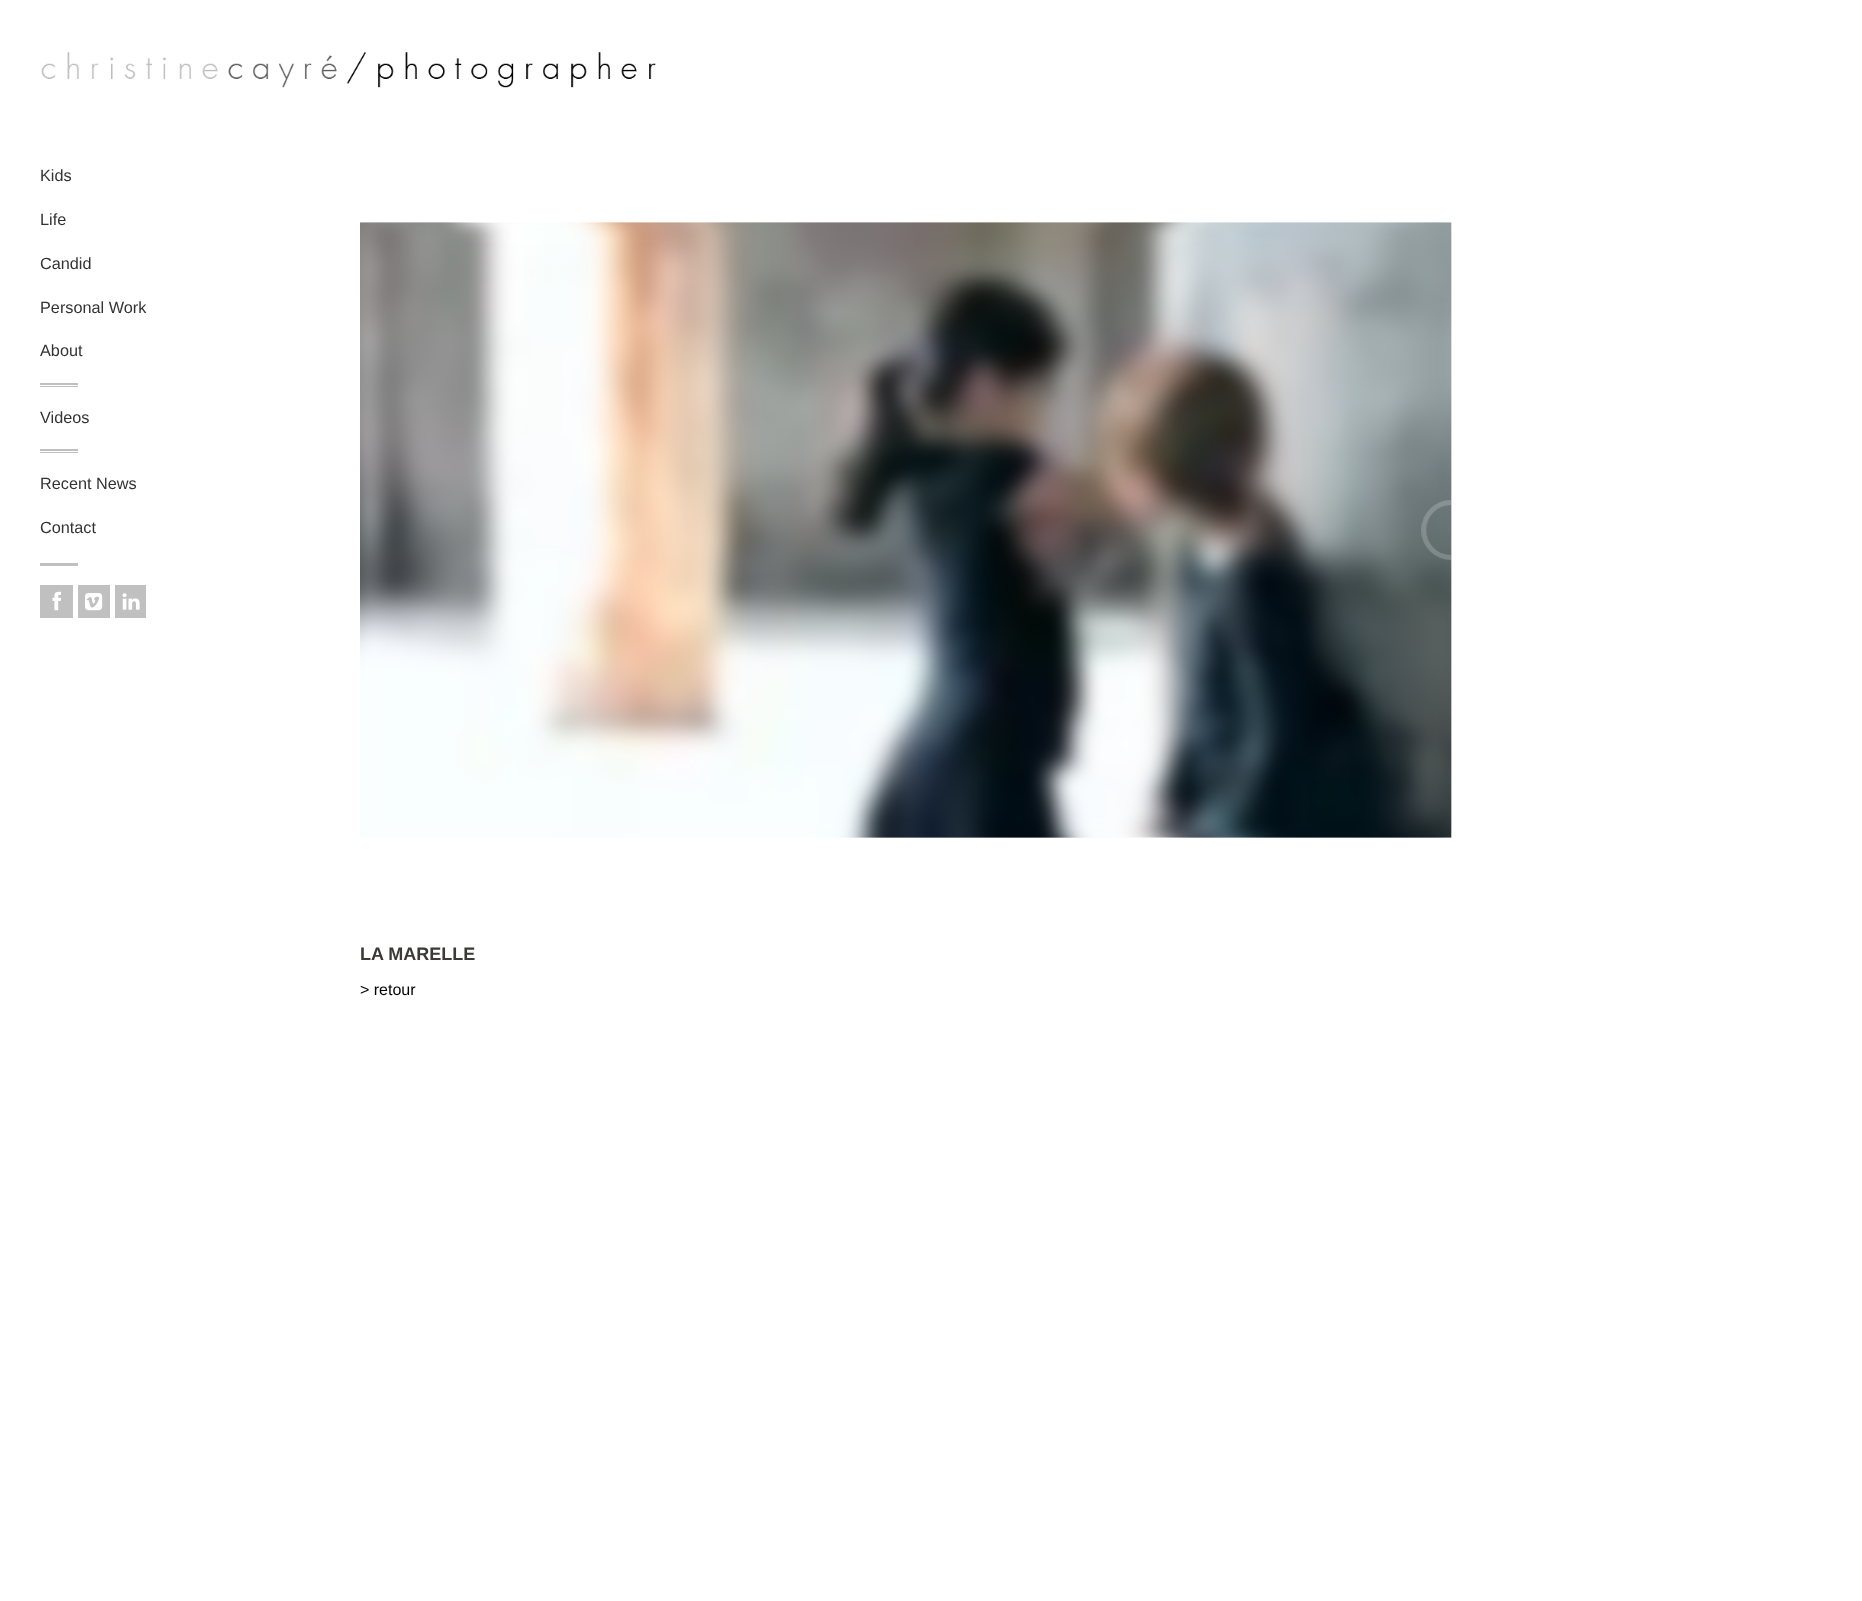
<svg xmlns="http://www.w3.org/2000/svg" width="1862" height="1601" viewBox="0 0 1862 1601">
  <rect width="100%" height="100%" fill="#ffffff"/>
  <image x="41" y="52" width="615" height="36" href="img1.png"/>
  <text x="40" y="181" font-family="Liberation Sans" font-size="16.25" fill="#333333">Kids</text>
  <text x="40" y="225" font-family="Liberation Sans" font-size="16.25" fill="#333333">Life</text>
  <text x="40" y="269" font-family="Liberation Sans" font-size="16.25" fill="#333333">Candid</text>
  <text x="40" y="313" font-family="Liberation Sans" font-size="16.25" fill="#333333">Personal Work</text>
  <text x="40" y="356" font-family="Liberation Sans" font-size="16.25" fill="#333333">About</text>
  <rect x="40" y="383" width="38" height="4" fill="#c0c0c0"/>
  <rect x="40" y="385" width="38" height="1" fill="#ffffff"/>
  <text x="40" y="423" font-family="Liberation Sans" font-size="16.25" fill="#333333">Videos</text>
  <rect x="40" y="449" width="38" height="4" fill="#c0c0c0"/>
  <rect x="40" y="451" width="38" height="1" fill="#ffffff"/>
  <text x="40" y="489" font-family="Liberation Sans" font-size="16.25" fill="#333333">Recent News</text>
  <text x="40" y="533" font-family="Liberation Sans" font-size="16.25" fill="#333333">Contact</text>
  <rect x="40" y="563" width="38" height="3" fill="#c0c0c0"/>
  <rect x="40" y="585" width="33" height="33" fill="#c0c0c0"/>
  <image x="52" y="591" width="9" height="20" href="img2.png"/>
  <rect x="78" y="585" width="32" height="33" fill="#c0c0c0"/>
  <image x="85" y="593" width="18" height="18" href="img3.png"/>
  <rect x="115" y="585" width="31" height="33" fill="#c0c0c0"/>
  <image x="122" y="593" width="18" height="17" href="img4.png"/>
  <image x="360" y="222" width="1092" height="616" href="img5.png"/>
  <text x="360" y="960" font-family="Liberation Sans" font-size="18" font-weight="bold" fill="#3b3a37">LA MARELLE</text>
  <text x="360" y="995" font-family="Liberation Sans" font-size="16" fill="#000000">&gt; retour</text>
</svg>
